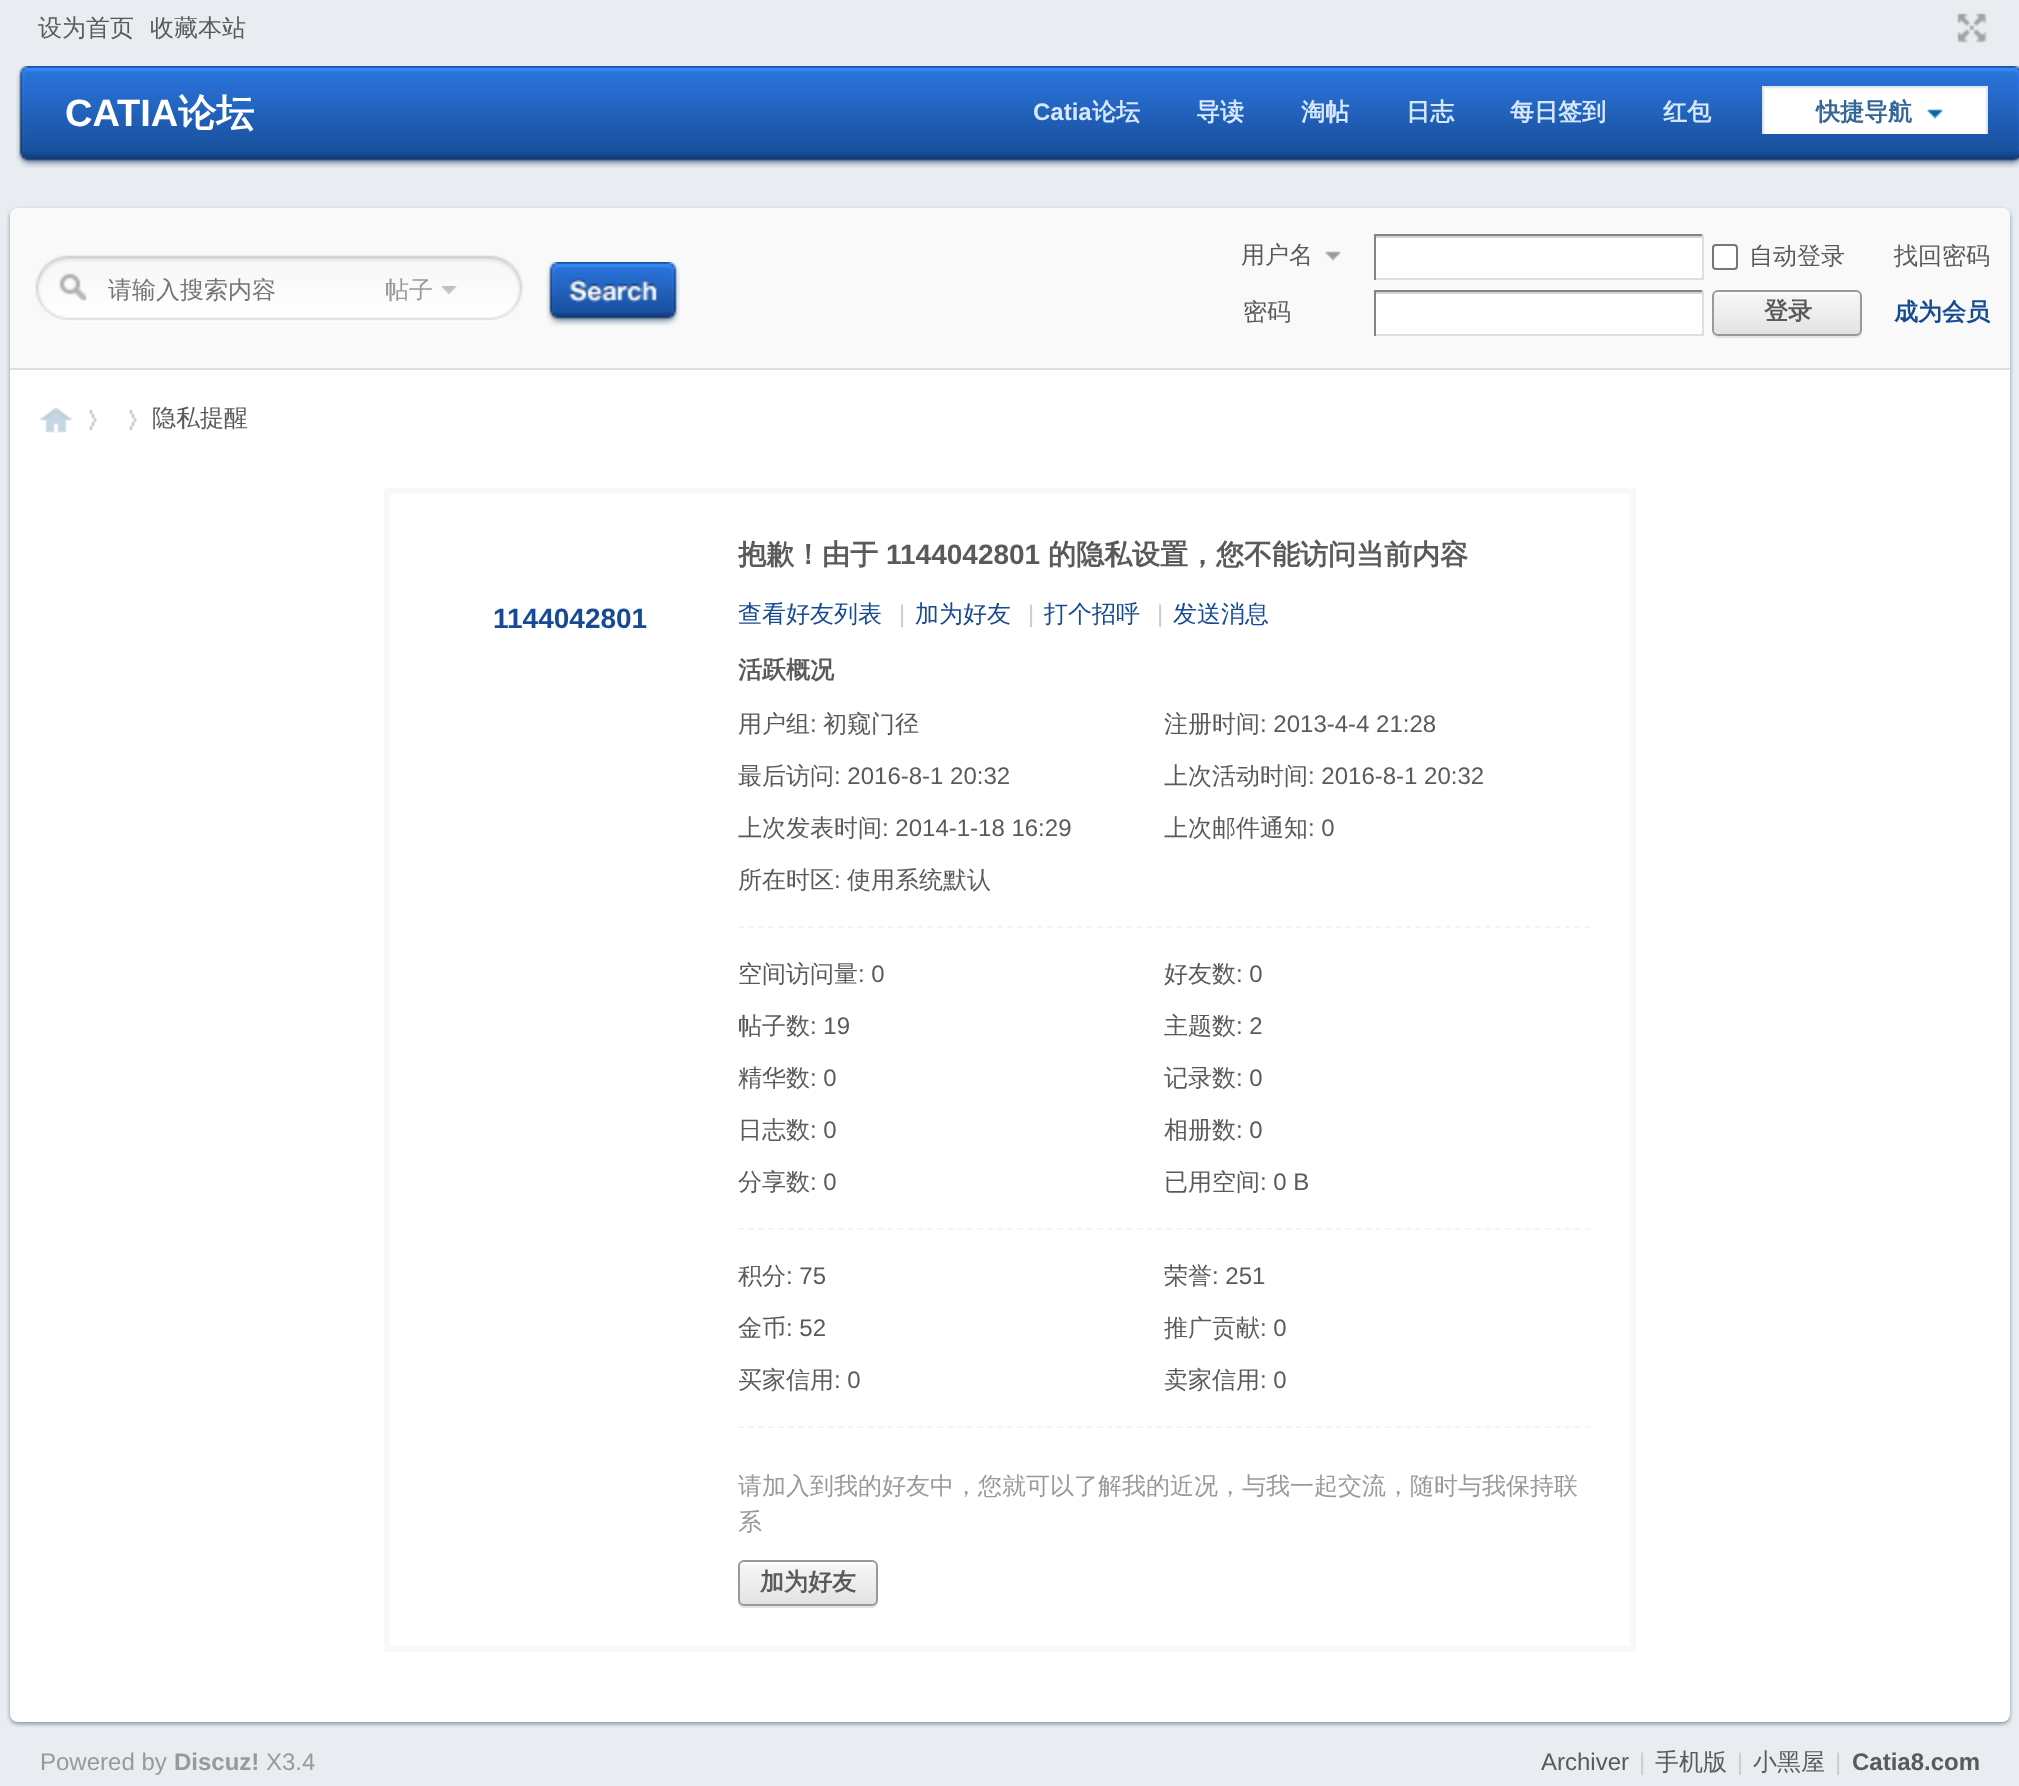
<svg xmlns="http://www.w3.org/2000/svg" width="2019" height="1786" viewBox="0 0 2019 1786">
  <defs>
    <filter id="blur1" x="-50%" y="-200%" width="200%" height="500%"><feGaussianBlur stdDeviation="2"/></filter>
  </defs>
  <rect width="100%" height="100%" fill="#e9edf1"/>
  <text x="38" y="36" font-family="WenQuanYi Zen Hei" font-size="24" font-weight="500" fill="#595a5a">设为首页</text>
  <text x="150" y="36" font-family="WenQuanYi Zen Hei" font-size="24" font-weight="500" fill="#595a5a">收藏本站</text>
  <image x="1956" y="13" width="31" height="30" href="img1.png"/>
  <image x="16" y="66" width="1997" height="102" href="img2.png"/>
  <text x="65" y="126" font-family="Liberation Sans" font-size="38" font-weight="bold" fill="#ffffff">CATIA</text>
  <text x="178" y="126" font-family="WenQuanYi Zen Hei" font-size="38" font-weight="bold" fill="#ffffff">论坛</text>
  <text x="1033" y="120" font-family="Liberation Sans" font-size="24" font-weight="bold" fill="#d6e7ff">Catia</text>
  <text x="1092" y="120" font-family="WenQuanYi Zen Hei" font-size="24" font-weight="bold" fill="#d6e7ff">论坛</text>
  <text x="1196" y="120" font-family="WenQuanYi Zen Hei" font-size="24" font-weight="bold" fill="#d6e7ff">导读</text>
  <text x="1301" y="120" font-family="WenQuanYi Zen Hei" font-size="24" font-weight="bold" fill="#d6e7ff">淘帖</text>
  <text x="1406" y="120" font-family="WenQuanYi Zen Hei" font-size="24" font-weight="bold" fill="#d6e7ff">日志</text>
  <text x="1510" y="120" font-family="WenQuanYi Zen Hei" font-size="24" font-weight="bold" fill="#d6e7ff">每日签到</text>
  <text x="1663" y="120" font-family="WenQuanYi Zen Hei" font-size="24" font-weight="bold" fill="#d6e7ff">红包</text>
  <image x="1762" y="86" width="226" height="48" href="img3.png"/>
  <text x="1816" y="120" font-family="WenQuanYi Zen Hei" font-size="24" font-weight="bold" fill="#336699">快捷导航</text>
  <image x="2013" y="66" width="6" height="102" href="img4.png"/>
  <rect x="10" y="210" width="2000" height="1514" rx="8" fill="#8493a6" filter="url(#blur1)"/>
  <rect x="10" y="208" width="2000" height="1514" rx="8" fill="#ffffff"/>
  <path d="M18 208H2002C2006.5 208 2010 211.5 2010 216V370H10V216C10 211.5 13.5 208 18 208Z" fill="#f9f9f9"/>
  <rect x="10" y="368" width="2000" height="2" fill="#dfdfdf"/>
  <image x="35" y="255" width="488" height="67" href="img5.png"/>
  <text x="108" y="298" font-family="WenQuanYi Zen Hei" font-size="24" font-weight="500" fill="#757575">请输入搜索内容</text>
  <image x="442" y="286" width="15" height="8" href="img6.png"/>
  <text x="385" y="298" font-family="WenQuanYi Zen Hei" font-size="24" font-weight="500" fill="#999999">帖子</text>
  <image x="546" y="262" width="134" height="64" href="img7.png"/>
  <image x="1325" y="251" width="16" height="10" href="img8.png"/>
  <text x="1241" y="263" font-family="WenQuanYi Zen Hei" font-size="24" font-weight="500" fill="#595a5a">用户名</text>
  <rect x="1376" y="238" width="326" height="40" fill="#ffffff"/>
  <rect x="1374" y="236" width="330" height="2" fill="#d4d4d4"/>
  <rect x="1374" y="234" width="330" height="2" fill="#848484"/>
  <rect x="1702" y="234" width="2" height="46" fill="#dfdfdf"/>
  <rect x="1374" y="278" width="330" height="2" fill="#dfdfdf"/>
  <rect x="1374" y="234" width="2" height="46" fill="#848484"/>
  <rect x="1713" y="245" width="24" height="24" rx="3" fill="#ffffff" stroke="#767676" stroke-width="2"/>
  <text x="1749" y="264" font-family="WenQuanYi Zen Hei" font-size="24" font-weight="500" fill="#595a5a">自动登录</text>
  <text x="1894" y="264" font-family="WenQuanYi Zen Hei" font-size="24" font-weight="500" fill="#595a5a">找回密码</text>
  <text x="1243" y="320" font-family="WenQuanYi Zen Hei" font-size="24" font-weight="500" fill="#595a5a">密码</text>
  <rect x="1376" y="294" width="326" height="40" fill="#ffffff"/>
  <rect x="1374" y="292" width="330" height="2" fill="#d4d4d4"/>
  <rect x="1374" y="290" width="330" height="2" fill="#848484"/>
  <rect x="1702" y="290" width="2" height="46" fill="#dfdfdf"/>
  <rect x="1374" y="334" width="330" height="2" fill="#dfdfdf"/>
  <rect x="1374" y="290" width="2" height="46" fill="#848484"/>
  <rect x="1876" y="228" width="2" height="114" fill="#f8fbff"/>
  <path d="M1712 330V332C1712 335 1715 338 1718 338H1856C1859 338 1862 335 1862 332V330C1862 333 1859 336 1856 336H1718C1715 336 1712 333 1712 330Z" fill="#e5e5e5"/>
  <image x="1712" y="292" width="150" height="44" href="img9.png"/>
  <rect x="1713" y="291" width="148" height="44" rx="5" fill="none" stroke="#999999" stroke-width="2"/>
  <text x="1764" y="319" font-family="WenQuanYi Zen Hei" font-size="24" font-weight="bold" fill="#595a5a">登录</text>
  <text x="1894" y="320" font-family="WenQuanYi Zen Hei" font-size="24" font-weight="bold" fill="#164a93">成为会员</text>
  <image x="40" y="407" width="32" height="26" href="img10.png"/>
  <image x="89" y="410" width="8" height="20" href="img11.png"/>
  <image x="129" y="410" width="8" height="20" href="img11.png"/>
  <text x="152" y="426" font-family="WenQuanYi Zen Hei" font-size="24" font-weight="500" fill="#595a5a">隐私提醒</text>
  <rect x="387" y="491" width="1246" height="1158" fill="none" stroke="#f5f9fb" stroke-width="6"/>
  <text x="493" y="628" font-family="Liberation Sans" font-size="28" font-weight="bold" fill="#164a93">1144042801</text>
  <text x="738" y="564" font-family="WenQuanYi Zen Hei" font-size="28" font-weight="bold" fill="#595a5a">抱歉！由于</text>
  <text x="886" y="564" font-family="Liberation Sans" font-size="28" font-weight="bold" fill="#595a5a">1144042801</text>
  <text x="1048" y="564" font-family="WenQuanYi Zen Hei" font-size="28" font-weight="bold" fill="#595a5a">的隐私设置，您不能访问当前内容</text>
  <text x="738" y="622" font-family="WenQuanYi Zen Hei" font-size="24" font-weight="500" fill="#164a93">查看好友列表</text>
  <text x="899" y="622" font-family="Liberation Sans" font-size="24" fill="#cccccc">|</text>
  <text x="915" y="622" font-family="WenQuanYi Zen Hei" font-size="24" font-weight="500" fill="#164a93">加为好友</text>
  <text x="1028" y="622" font-family="Liberation Sans" font-size="24" fill="#cccccc">|</text>
  <text x="1044" y="622" font-family="WenQuanYi Zen Hei" font-size="24" font-weight="500" fill="#164a93">打个招呼</text>
  <text x="1157" y="622" font-family="Liberation Sans" font-size="24" fill="#cccccc">|</text>
  <text x="1173" y="622" font-family="WenQuanYi Zen Hei" font-size="24" font-weight="500" fill="#164a93">发送消息</text>
  <path d="M738 927H1590" fill="none" stroke="#f4f4f4" stroke-width="2" stroke-dasharray="6 3.96"/>
  <text x="738" y="678" font-family="WenQuanYi Zen Hei" font-size="24" font-weight="bold" fill="#595a5a">活跃概况</text>
  <text x="738" y="732" font-family="WenQuanYi Zen Hei" font-size="24" font-weight="500" fill="#595a5a">用户组</text>
  <text x="810" y="732" font-family="Liberation Sans" font-size="24" fill="#595a5a">:</text>
  <text x="823" y="732" font-family="WenQuanYi Zen Hei" font-size="24" font-weight="500" fill="#595a5a">初窥门径</text>
  <text x="1164" y="732" font-family="WenQuanYi Zen Hei" font-size="24" font-weight="500" fill="#595a5a">注册时间</text>
  <text x="1260" y="732" font-family="Liberation Sans" font-size="24" fill="#595a5a">: 2013-4-4 21:28</text>
  <text x="738" y="784" font-family="WenQuanYi Zen Hei" font-size="24" font-weight="500" fill="#595a5a">最后访问</text>
  <text x="834" y="784" font-family="Liberation Sans" font-size="24" fill="#595a5a">: 2016-8-1 20:32</text>
  <text x="1164" y="784" font-family="WenQuanYi Zen Hei" font-size="24" font-weight="500" fill="#595a5a">上次活动时间</text>
  <text x="1308" y="784" font-family="Liberation Sans" font-size="24" fill="#595a5a">: 2016-8-1 20:32</text>
  <text x="738" y="836" font-family="WenQuanYi Zen Hei" font-size="24" font-weight="500" fill="#595a5a">上次发表时间</text>
  <text x="882" y="836" font-family="Liberation Sans" font-size="24" fill="#595a5a">: 2014-1-18 16:29</text>
  <text x="1164" y="836" font-family="WenQuanYi Zen Hei" font-size="24" font-weight="500" fill="#595a5a">上次邮件通知</text>
  <text x="1308" y="836" font-family="Liberation Sans" font-size="24" fill="#595a5a">: 0</text>
  <text x="738" y="888" font-family="WenQuanYi Zen Hei" font-size="24" font-weight="500" fill="#595a5a">所在时区</text>
  <text x="834" y="888" font-family="Liberation Sans" font-size="24" fill="#595a5a">:</text>
  <text x="847" y="888" font-family="WenQuanYi Zen Hei" font-size="24" font-weight="500" fill="#595a5a">使用系统默认</text>
  <path d="M738 1229H1590" fill="none" stroke="#f4f4f4" stroke-width="2" stroke-dasharray="6 3.96"/>
  <text x="738" y="982" font-family="WenQuanYi Zen Hei" font-size="24" font-weight="500" fill="#595a5a">空间访问量</text>
  <text x="858" y="982" font-family="Liberation Sans" font-size="24" fill="#595a5a">: 0</text>
  <text x="1164" y="982" font-family="WenQuanYi Zen Hei" font-size="24" font-weight="500" fill="#595a5a">好友数</text>
  <text x="1236" y="982" font-family="Liberation Sans" font-size="24" fill="#595a5a">: 0</text>
  <text x="738" y="1034" font-family="WenQuanYi Zen Hei" font-size="24" font-weight="500" fill="#595a5a">帖子数</text>
  <text x="810" y="1034" font-family="Liberation Sans" font-size="24" fill="#595a5a">: 19</text>
  <text x="1164" y="1034" font-family="WenQuanYi Zen Hei" font-size="24" font-weight="500" fill="#595a5a">主题数</text>
  <text x="1236" y="1034" font-family="Liberation Sans" font-size="24" fill="#595a5a">: 2</text>
  <text x="738" y="1086" font-family="WenQuanYi Zen Hei" font-size="24" font-weight="500" fill="#595a5a">精华数</text>
  <text x="810" y="1086" font-family="Liberation Sans" font-size="24" fill="#595a5a">: 0</text>
  <text x="1164" y="1086" font-family="WenQuanYi Zen Hei" font-size="24" font-weight="500" fill="#595a5a">记录数</text>
  <text x="1236" y="1086" font-family="Liberation Sans" font-size="24" fill="#595a5a">: 0</text>
  <text x="738" y="1138" font-family="WenQuanYi Zen Hei" font-size="24" font-weight="500" fill="#595a5a">日志数</text>
  <text x="810" y="1138" font-family="Liberation Sans" font-size="24" fill="#595a5a">: 0</text>
  <text x="1164" y="1138" font-family="WenQuanYi Zen Hei" font-size="24" font-weight="500" fill="#595a5a">相册数</text>
  <text x="1236" y="1138" font-family="Liberation Sans" font-size="24" fill="#595a5a">: 0</text>
  <text x="738" y="1190" font-family="WenQuanYi Zen Hei" font-size="24" font-weight="500" fill="#595a5a">分享数</text>
  <text x="810" y="1190" font-family="Liberation Sans" font-size="24" fill="#595a5a">: 0</text>
  <text x="1164" y="1190" font-family="WenQuanYi Zen Hei" font-size="24" font-weight="500" fill="#595a5a">已用空间</text>
  <text x="1260" y="1190" font-family="Liberation Sans" font-size="24" fill="#595a5a">: 0 B</text>
  <path d="M738 1427H1590" fill="none" stroke="#f4f4f4" stroke-width="2" stroke-dasharray="6 3.96"/>
  <text x="738" y="1284" font-family="WenQuanYi Zen Hei" font-size="24" font-weight="500" fill="#595a5a">积分</text>
  <text x="786" y="1284" font-family="Liberation Sans" font-size="24" fill="#595a5a">: 75</text>
  <text x="1164" y="1284" font-family="WenQuanYi Zen Hei" font-size="24" font-weight="500" fill="#595a5a">荣誉</text>
  <text x="1212" y="1284" font-family="Liberation Sans" font-size="24" fill="#595a5a">: 251</text>
  <text x="738" y="1336" font-family="WenQuanYi Zen Hei" font-size="24" font-weight="500" fill="#595a5a">金币</text>
  <text x="786" y="1336" font-family="Liberation Sans" font-size="24" fill="#595a5a">: 52</text>
  <text x="1164" y="1336" font-family="WenQuanYi Zen Hei" font-size="24" font-weight="500" fill="#595a5a">推广贡献</text>
  <text x="1260" y="1336" font-family="Liberation Sans" font-size="24" fill="#595a5a">: 0</text>
  <text x="738" y="1388" font-family="WenQuanYi Zen Hei" font-size="24" font-weight="500" fill="#595a5a">买家信用</text>
  <text x="834" y="1388" font-family="Liberation Sans" font-size="24" fill="#595a5a">: 0</text>
  <text x="1164" y="1388" font-family="WenQuanYi Zen Hei" font-size="24" font-weight="500" fill="#595a5a">卖家信用</text>
  <text x="1260" y="1388" font-family="Liberation Sans" font-size="24" fill="#595a5a">: 0</text>
  <text x="738" y="1494" font-family="WenQuanYi Zen Hei" font-size="24" font-weight="500" fill="#999999">请加入到我的好友中，您就可以了解我的近况，与我一起交流，随时与我保持联</text>
  <text x="738" y="1530" font-family="WenQuanYi Zen Hei" font-size="24" font-weight="500" fill="#999999">系</text>
  <path d="M738 1600V1602C738 1605 741 1608 744 1608H872C875 1608 878 1605 878 1602V1600C878 1603 875 1606 872 1606H744C741 1606 738 1603 738 1600Z" fill="#e5e5e5"/>
  <image x="738" y="1562" width="140" height="44" href="img12.png"/>
  <rect x="739" y="1561" width="138" height="44" rx="5" fill="none" stroke="#999999" stroke-width="2"/>
  <text x="760" y="1590" font-family="WenQuanYi Zen Hei" font-size="24" font-weight="bold" fill="#595a5a">加为好友</text>
  <text x="40" y="1770" font-family="Liberation Sans" font-size="24" fill="#999999">Powered by</text>
  <text x="174" y="1770" font-family="Liberation Sans" font-size="24" font-weight="bold" fill="#999999">Discuz!</text>
  <text x="266" y="1770" font-family="Liberation Sans" font-size="24" fill="#999999">X3.4</text>
  <text x="1541" y="1770" font-family="Liberation Sans" font-size="24" fill="#595a5a">Archiver</text>
  <text x="1639" y="1770" font-family="Liberation Sans" font-size="24" fill="#cccccc">|</text>
  <text x="1655" y="1770" font-family="WenQuanYi Zen Hei" font-size="24" font-weight="500" fill="#595a5a">手机版</text>
  <text x="1737" y="1770" font-family="Liberation Sans" font-size="24" fill="#cccccc">|</text>
  <text x="1753" y="1770" font-family="WenQuanYi Zen Hei" font-size="24" font-weight="500" fill="#595a5a">小黑屋</text>
  <text x="1835" y="1770" font-family="Liberation Sans" font-size="24" fill="#cccccc">|</text>
  <text x="1852" y="1770" font-family="Liberation Sans" font-size="24" font-weight="bold" fill="#595a5a">Catia8.com</text>
</svg>
